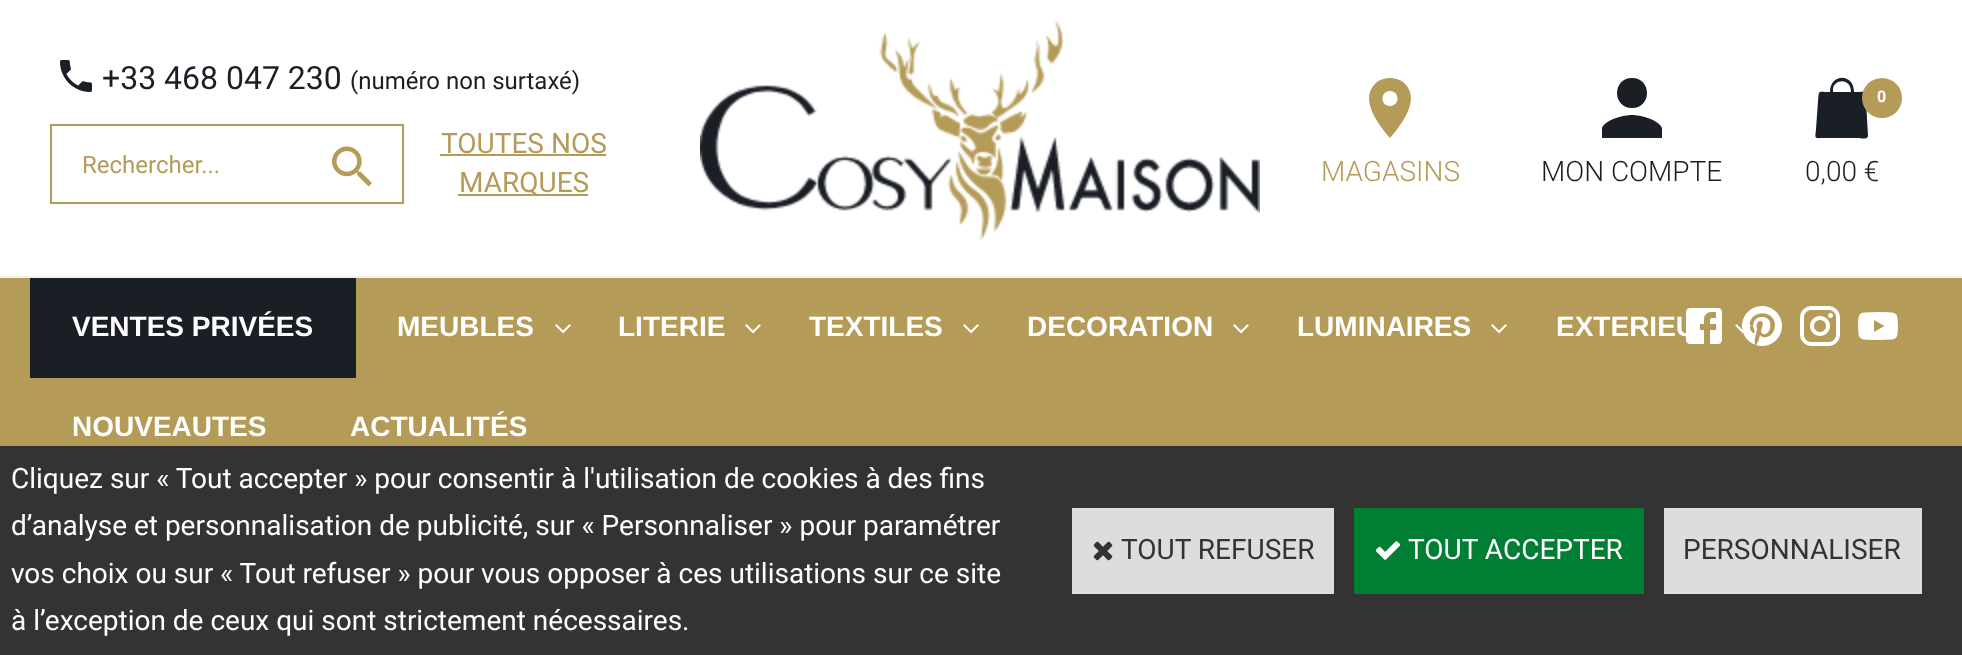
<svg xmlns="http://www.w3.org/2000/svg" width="1962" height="655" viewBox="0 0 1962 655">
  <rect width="100%" height="100%" fill="#ffffff"/>
  <image x="60" y="60" width="32" height="32" href="img1.png"/>
  <text x="102" y="89" font-family="Roboto" font-size="32" fill="#1a1f26">+33 468 047 230</text>
  <text x="350" y="89" font-family="Roboto" font-size="24" fill="#1a1f26">(numéro non surtaxé)</text>
  <rect x="50" y="124" width="354" height="2" fill="#b49b57"/>
  <rect x="50" y="202" width="252" height="2" fill="#b49b57"/>
  <rect x="50" y="124" width="2" height="80" fill="#b49b57"/>
  <text x="82" y="173" font-family="Roboto" font-size="24" fill="#b49b57">Rechercher...</text>
  <rect x="402" y="124" width="2" height="80" fill="#b49b57"/>
  <rect x="302" y="202" width="102" height="2" fill="#b49b57"/>
  <image x="332" y="146" width="40" height="41" href="img2.png"/>
  <text x="441" y="153" font-family="Roboto" font-size="28" fill="#b49b57">TOUTES NOS</text>
  <rect x="440" y="154" width="166" height="2" fill="#b49b57"/>
  <rect x="458" y="194" width="130" height="2" fill="#b49b57"/>
  <text x="459" y="192" font-family="Roboto" font-size="28" fill="#b49b57">MARQUES</text>
  <image x="700" y="20" width="560" height="220" href="img3.png"/>
  <path d="M1390 78C1384 78 1378 80 1374 85C1360 101 1379 125 1390 138C1401 125 1420 101 1406 85C1402 80 1396 78 1390 78ZM1390 106C1380 106 1380 91 1390 91C1400 91 1400 106 1390 106Z" fill="#b49b57"/>
  <text x="1321" y="181" font-family="Roboto" font-size="28" font-weight="300" fill="#b49b57">MAGASINS</text>
  <path d="M1632 108C1652 108 1652 78 1632 78C1612 78 1612 108 1632 108ZM1632 115C1624 115 1606 119 1602 128V138H1662V128C1658 119 1640 115 1632 115Z" fill="#1a1f26"/>
  <text x="1541" y="181" font-family="Roboto" font-size="28" font-weight="300" fill="#1a1f26">MON COMPTE</text>
  <path d="M1868 136L1866 101C1865 89 1866 92 1854 92C1854 73 1830 73 1830 92C1818 92 1819 89 1818 101L1816 129C1815 140 1814 138 1825 138H1859C1859 138 1868 140 1868 136ZM1833 90C1833 79 1851 77 1851 92H1833Z" fill="#1a1f26"/>
  <circle cx="1882" cy="98" r="20" fill="#b49b57"/>
  <text x="1877" y="102" font-family="Roboto" font-size="16" font-weight="bold" fill="#ffffff">0</text>
  <text x="1805" y="181" font-family="Roboto" font-size="28" font-weight="300" fill="#1a1f26">0,00 €</text>
  <rect x="0" y="278" width="1962" height="168" fill="#b49b57"/>
  <text x="1556" y="336" font-family="Liberation Sans" font-size="28" font-weight="bold" fill="#ffffff">EXTERIEU</text>
  <image x="1686" y="308" width="36" height="36" href="img4.png"/>
  <image x="1735" y="324" width="16" height="10" href="img8.png"/>
  <image x="1742" y="306" width="40" height="40" href="img5.png"/>
  <image x="1800" y="306" width="40" height="40" href="img6.png"/>
  <image x="1858" y="312" width="40" height="28" href="img7.png"/>
  <rect x="0" y="276" width="1962" height="2" fill="#f1f1f1"/>
  <rect x="30" y="278" width="326" height="100" fill="#1a1f26"/>
  <text x="72" y="336" font-family="Liberation Sans" font-size="28" font-weight="bold" fill="#ffffff">VENTES PRIVÉES</text>
  <text x="397" y="336" font-family="Liberation Sans" font-size="28" font-weight="bold" fill="#ffffff">MEUBLES</text>
  <image x="555" y="324" width="16" height="10" href="img8.png"/>
  <text x="618" y="336" font-family="Liberation Sans" font-size="28" font-weight="bold" fill="#ffffff">LITERIE</text>
  <image x="745" y="324" width="16" height="10" href="img8.png"/>
  <text x="809" y="336" font-family="Liberation Sans" font-size="28" font-weight="bold" fill="#ffffff">TEXTILES</text>
  <image x="963" y="324" width="16" height="10" href="img8.png"/>
  <text x="1027" y="336" font-family="Liberation Sans" font-size="28" font-weight="bold" fill="#ffffff">DECORATION</text>
  <image x="1233" y="324" width="16" height="10" href="img8.png"/>
  <text x="1297" y="336" font-family="Liberation Sans" font-size="28" font-weight="bold" fill="#ffffff">LUMINAIRES</text>
  <image x="1491" y="324" width="16" height="10" href="img8.png"/>
  <text x="72" y="436" font-family="Liberation Sans" font-size="28" font-weight="bold" fill="#ffffff">NOUVEAUTES</text>
  <text x="350" y="436" font-family="Liberation Sans" font-size="28" font-weight="bold" fill="#ffffff">ACTUALITÉS</text>
  <rect x="0" y="446" width="1962" height="209" fill="#333333"/>
  <text x="11" y="488" font-family="Roboto" font-size="28" fill="#ffffff">Cliquez sur « Tout accepter » pour consentir à l'utilisation de cookies à des fins</text>
  <text x="11" y="535" font-family="Roboto" font-size="28" fill="#ffffff">d’analyse et personnalisation de publicité, sur « Personnaliser » pour paramétrer</text>
  <text x="11" y="583" font-family="Roboto" font-size="28" fill="#ffffff">vos choix ou sur « Tout refuser » pour vous opposer à ces utilisations sur ce site</text>
  <text x="11" y="630" font-family="Roboto" font-size="28" fill="#ffffff">à l’exception de ceux qui sont strictement nécessaires.</text>
  <rect x="1072" y="508" width="262" height="86" fill="#dddddd"/>
  <image x="1093" y="541" width="20" height="20" href="img9.png"/>
  <text x="1121" y="559" font-family="Roboto" font-size="28" fill="#333333">TOUT REFUSER</text>
  <rect x="1354" y="508" width="290" height="86" fill="#007e33"/>
  <image x="1375" y="541" width="26" height="19" href="img10.png"/>
  <text x="1408" y="559" font-family="Roboto" font-size="28" fill="#ffffff">TOUT ACCEPTER</text>
  <rect x="1664" y="508" width="258" height="86" fill="#dddddd"/>
  <text x="1683" y="559" font-family="Roboto" font-size="28" fill="#333333">PERSONNALISER</text>
</svg>
